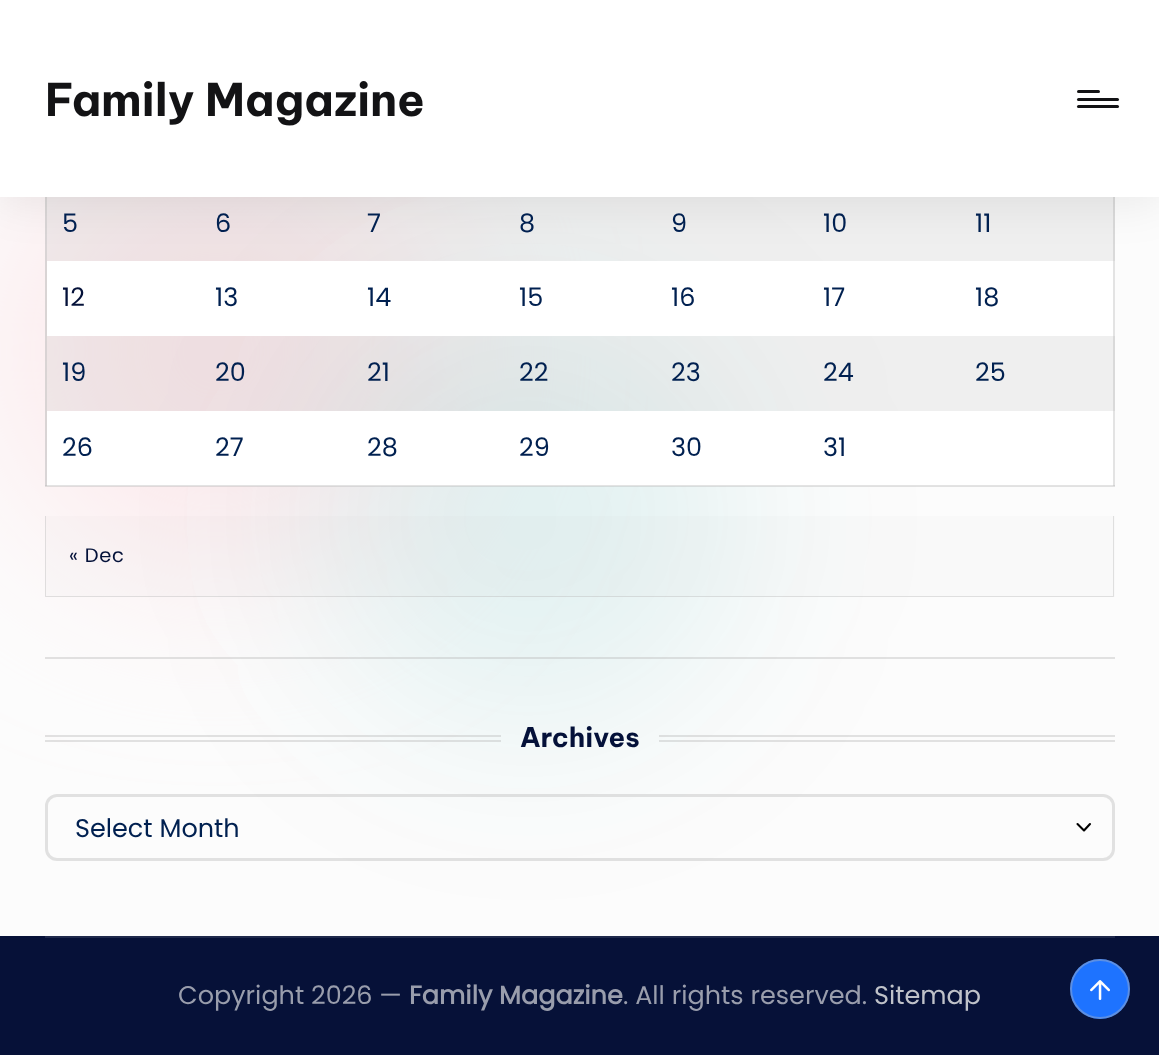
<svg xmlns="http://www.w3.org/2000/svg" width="1159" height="1055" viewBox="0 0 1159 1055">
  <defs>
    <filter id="blur1" x="-50%" y="-200%" width="200%" height="500%"><feGaussianBlur stdDeviation="96"/></filter>
    <filter id="blur2" x="-50%" y="-200%" width="200%" height="500%"><feGaussianBlur stdDeviation="22.5"/></filter>
  </defs>
  <rect width="100%" height="100%" fill="#fcfcfc"/>
  <rect x="0" y="135" width="432" height="432" rx="216" fill="#fce7ea" filter="url(#blur1)"/>
  <rect x="312" y="300" width="432" height="432" rx="216" fill="#04868b" fill-opacity="0.1" filter="url(#blur1)"/>
  <rect x="45" y="197" width="1070" height="289" fill="#bebebe" fill-opacity="0.2"/>
  <rect x="47" y="261" width="1068" height="75" fill="#ffffff"/>
  <rect x="47" y="411" width="1068" height="75" fill="#ffffff"/>
  <rect x="1113" y="197" width="2" height="289" fill="#b9b9b9" fill-opacity="0.4"/>
  <rect x="45" y="485" width="1070" height="2" fill="#b9b9b9" fill-opacity="0.4"/>
  <rect x="45" y="197" width="2" height="289" fill="#b9b9b9" fill-opacity="0.4"/>
  <rect x="0" y="6" width="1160" height="197" fill="#000000" fill-opacity="0.08" filter="url(#blur2)"/>
  <rect x="0" y="0" width="1159" height="197" fill="#ffffff"/>
  <text x="45" y="116" font-family="Be Vietnam Pro" font-size="45" font-weight="bold" fill="#131315">Family Magazine</text>
  <rect x="1077" y="98" width="42" height="3" rx="1.5" fill="#131315"/>
  <rect x="1077" y="90" width="23" height="3" rx="1.5" fill="#131315"/>
  <rect x="1077" y="105" width="42" height="3" rx="1.5" fill="#131315"/>
  <rect x="45" y="657" width="1070" height="2" fill="#b9b9b9" fill-opacity="0.4"/>
  <text x="62" y="232" font-family="Poppins" font-size="25.5" fill="#002050">5</text>
  <text x="215" y="232" font-family="Poppins" font-size="25.5" fill="#002050">6</text>
  <text x="367" y="232" font-family="Poppins" font-size="25.5" fill="#002050">7</text>
  <text x="519" y="232" font-family="Poppins" font-size="25.5" fill="#002050">8</text>
  <text x="671" y="232" font-family="Poppins" font-size="25.5" fill="#002050">9</text>
  <text x="823" y="232" font-family="Poppins" font-size="25.5" fill="#002050">10</text>
  <text x="975" y="232" font-family="Poppins" font-size="25.5" fill="#002050">11</text>
  <text x="62" y="306" font-family="Poppins" font-size="25.5" fill="#041139">12</text>
  <text x="215" y="306" font-family="Poppins" font-size="25.5" fill="#002050">13</text>
  <text x="367" y="306" font-family="Poppins" font-size="25.5" fill="#002050">14</text>
  <text x="519" y="306" font-family="Poppins" font-size="25.5" fill="#002050">15</text>
  <text x="671" y="306" font-family="Poppins" font-size="25.5" fill="#002050">16</text>
  <text x="823" y="306" font-family="Poppins" font-size="25.5" fill="#002050">17</text>
  <text x="975" y="306" font-family="Poppins" font-size="25.5" fill="#002050">18</text>
  <text x="62" y="381" font-family="Poppins" font-size="25.5" fill="#002050">19</text>
  <text x="215" y="381" font-family="Poppins" font-size="25.5" fill="#002050">20</text>
  <text x="367" y="381" font-family="Poppins" font-size="25.5" fill="#002050">21</text>
  <text x="519" y="381" font-family="Poppins" font-size="25.5" fill="#002050">22</text>
  <text x="671" y="381" font-family="Poppins" font-size="25.5" fill="#002050">23</text>
  <text x="823" y="381" font-family="Poppins" font-size="25.5" fill="#002050">24</text>
  <text x="975" y="381" font-family="Poppins" font-size="25.5" fill="#002050">25</text>
  <text x="62" y="456" font-family="Poppins" font-size="25.5" fill="#002050">26</text>
  <text x="215" y="456" font-family="Poppins" font-size="25.5" fill="#002050">27</text>
  <text x="367" y="456" font-family="Poppins" font-size="25.5" fill="#002050">28</text>
  <text x="519" y="456" font-family="Poppins" font-size="25.5" fill="#002050">29</text>
  <text x="671" y="456" font-family="Poppins" font-size="25.5" fill="#002050">30</text>
  <text x="823" y="456" font-family="Poppins" font-size="25.5" fill="#002050">31</text>
  <rect x="45" y="516" width="1070" height="81" fill="#bebebe" fill-opacity="0.05"/>
  <path d="M1114 516V597L1113 596V516Z" fill="#dfdfdf"/>
  <path d="M1114 597H45L46 596H1113Z" fill="#b9b9b9" fill-opacity="0.4"/>
  <path d="M45 597V516H46V596Z" fill="#b9b9b9" fill-opacity="0.4"/>
  <text x="69" y="562" font-family="Poppins" font-size="19.5" letter-spacing="0.75" fill="#041139">« Dec</text>
  <rect x="45" y="735" width="456" height="2" fill="#b9b9b9" fill-opacity="0.4"/>
  <rect x="45" y="740" width="456" height="2" fill="#b9b9b9" fill-opacity="0.4"/>
  <text x="520" y="747" font-family="Be Vietnam Pro" font-size="27" font-weight="bold" fill="#041139">Archives</text>
  <rect x="659" y="735" width="456" height="2" fill="#b9b9b9" fill-opacity="0.4"/>
  <rect x="659" y="740" width="456" height="2" fill="#b9b9b9" fill-opacity="0.4"/>
  <path d="M1077.5 824L1084 830.5L1090 824" fill="none" stroke="#000000" stroke-width="2.1" stroke-linecap="round" stroke-linejoin="round"/>
  <rect x="46.5" y="795.5" width="1067" height="64" rx="10.5" fill="none" stroke="#b9b9b9" stroke-opacity="0.4" stroke-width="3"/>
  <text x="75" y="837" font-family="Poppins" font-size="25.5" fill="#002050">Select Month</text>
  <rect x="0" y="936" width="1159" height="119" fill="#061138"/>
  <rect x="45" y="936" width="1070" height="2" fill="#1f294c"/>
  <text x="178" y="1004" font-family="Poppins" font-size="25.5" fill="#999dac">Copyright 2026 —</text>
  <text x="409" y="1004" font-family="Poppins" font-size="25.5" font-weight="bold" fill="#999dac">Family Magazine</text>
  <text x="623" y="1004" font-family="Poppins" font-size="25.5" fill="#999dac">. All rights reserved.</text>
  <text x="874" y="1004" font-family="Poppins" font-size="25.5" fill="#bfc2c9">Sitemap</text>
  <circle cx="1100" cy="989" r="30" fill="#1e73ff"/>
  <circle cx="1100" cy="989" r="29" fill="none" stroke="#b9b9b9" stroke-opacity="0.4" stroke-width="2"/>
  <image x="1090" y="980" width="20" height="20" href="img1.png"/>
</svg>
